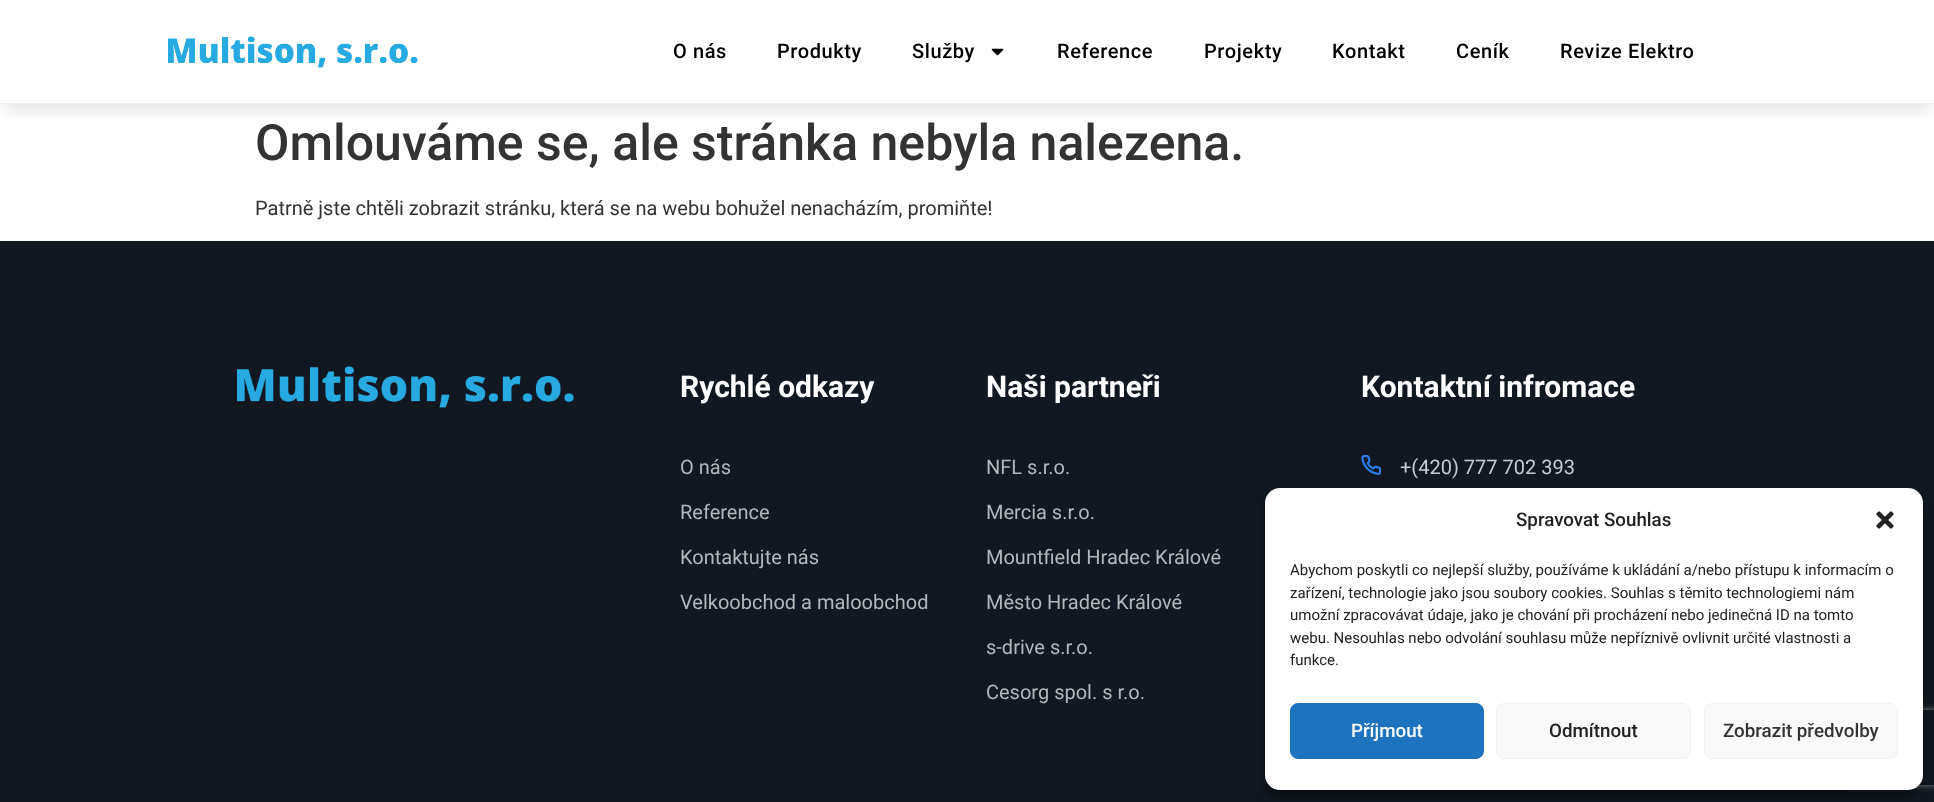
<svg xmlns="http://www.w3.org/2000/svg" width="1934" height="802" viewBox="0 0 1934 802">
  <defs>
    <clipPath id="clip1"><rect x="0" y="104" width="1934" height="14"/></clipPath>
    <filter id="blur1" x="-50%" y="-200%" width="200%" height="500%"><feGaussianBlur stdDeviation="8"/></filter>
    <filter id="blur2" x="-50%" y="-200%" width="200%" height="500%"><feGaussianBlur stdDeviation="4"/></filter>
    <filter id="blur3" x="-50%" y="-200%" width="200%" height="500%"><feGaussianBlur stdDeviation="12.5"/></filter>
    <clipPath id="clip2"><path d="M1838 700H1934V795H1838ZM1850.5 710H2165.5C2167 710 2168 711 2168 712.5V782.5C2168 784 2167 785 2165.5 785H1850.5C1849 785 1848 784 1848 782.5V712.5C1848 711 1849 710 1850.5 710Z" clip-rule="evenodd"/></clipPath>
    <filter id="blur4" x="-50%" y="-200%" width="200%" height="500%"><feGaussianBlur stdDeviation="3"/></filter>
  </defs>
  <rect width="100%" height="100%" fill="#ffffff"/>
  <g clip-path="url(#clip1)">
    <rect x="5" y="18" width="1925" height="93" fill="#000000" fill-opacity="0.1" filter="url(#blur1)"/>
  </g>
  <rect x="0" y="103" width="1934" height="1" fill="#ecf0f3"/>
  <image x="168" y="36" width="250" height="32" href="img1.png"/>
  <text x="673" y="58" font-family="Roboto" font-size="20" font-weight="500" letter-spacing="0.6" fill="#000000">O nás</text>
  <text x="777" y="58" font-family="Roboto" font-size="20" font-weight="500" letter-spacing="0.6" fill="#000000">Produkty</text>
  <text x="912" y="58" font-family="Roboto" font-size="20" font-weight="500" letter-spacing="0.6" fill="#000000">Služby</text>
  <image x="991" y="48" width="13" height="8" href="img2.png"/>
  <text x="1057" y="58" font-family="Roboto" font-size="20" font-weight="500" letter-spacing="0.6" fill="#000000">Reference</text>
  <text x="1204" y="58" font-family="Roboto" font-size="20" font-weight="500" letter-spacing="0.6" fill="#000000">Projekty</text>
  <text x="1332" y="58" font-family="Roboto" font-size="20" font-weight="500" letter-spacing="0.6" fill="#000000">Kontakt</text>
  <text x="1456" y="58" font-family="Roboto" font-size="20" font-weight="500" letter-spacing="0.6" fill="#000000">Ceník</text>
  <text x="1560" y="58" font-family="Roboto" font-size="20" font-weight="500" letter-spacing="0.6" fill="#000000">Revize Elektro</text>
  <text x="255" y="160" font-family="Roboto" font-size="50" font-weight="500" fill="#333333">Omlouváme se, ale stránka nebyla nalezena.</text>
  <text x="255" y="215" font-family="Roboto" font-size="20" fill="#333333">Patrně jste chtěli zobrazit stránku, která se na webu bohužel nenacházím, promiňte!</text>
  <rect x="0" y="241" width="1934" height="561" fill="#111821"/>
  <image x="237" y="366" width="337" height="42" href="img3.png"/>
  <text x="680" y="397" font-family="Roboto" font-size="30" font-weight="bold" fill="#ffffff">Rychlé odkazy</text>
  <text x="680" y="474" font-family="Roboto" font-size="20" fill="#b4b7bb">O nás</text>
  <text x="680" y="519" font-family="Roboto" font-size="20" fill="#b4b7bb">Reference</text>
  <text x="680" y="564" font-family="Roboto" font-size="20" fill="#b4b7bb">Kontaktujte nás</text>
  <text x="680" y="609" font-family="Roboto" font-size="20" fill="#b4b7bb">Velkoobchod a maloobchod</text>
  <text x="986" y="397" font-family="Roboto" font-size="30" font-weight="bold" fill="#ffffff">Naši partneři</text>
  <text x="986" y="474" font-family="Roboto" font-size="20" fill="#b4b7bb">NFL s.r.o.</text>
  <text x="986" y="519" font-family="Roboto" font-size="20" fill="#b4b7bb">Mercia s.r.o.</text>
  <text x="986" y="564" font-family="Roboto" font-size="20" fill="#b4b7bb">Mountfield Hradec Králové</text>
  <text x="986" y="609" font-family="Roboto" font-size="20" fill="#b4b7bb">Město Hradec Králové</text>
  <text x="986" y="654" font-family="Roboto" font-size="20" fill="#b4b7bb">s-drive s.r.o.</text>
  <text x="986" y="699" font-family="Roboto" font-size="20" fill="#b4b7bb">Cesorg spol. s r.o.</text>
  <text x="1361" y="397" font-family="Roboto" font-size="30" font-weight="bold" fill="#ffffff">Kontaktní infromace</text>
  <image x="1361" y="455" width="20" height="20" href="img4.png"/>
  <text x="1400" y="474" font-family="Roboto" font-size="20" fill="#c8cbcf">+(420) 777 702 393</text>
  <rect x="1265" y="495" width="658" height="303" rx="15" fill="#000000" fill-opacity="0.23" filter="url(#blur2)"/>
  <rect x="1265" y="500" width="658" height="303" rx="15" fill="#000000" fill-opacity="0.19" filter="url(#blur3)"/>
  <g clip-path="url(#clip2)">
    <rect x="1848" y="710" width="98" height="75" rx="2.5" fill="#808080" filter="url(#blur4)"/>
  </g>
  <rect x="1265" y="488" width="658" height="302" rx="15" fill="#ffffff"/>
  <text x="1516" y="526" font-family="Roboto" font-size="18.75" font-weight="500" fill="#222222">Spravovat Souhlas</text>
  <image x="1876" y="511" width="18" height="18" href="img5.png"/>
  <text x="1290" y="575" font-family="Roboto" font-size="15" fill="#222222">Abychom poskytli co nejlepší služby, používáme k ukládání a/nebo přístupu k informacím o</text>
  <text x="1290" y="598" font-family="Roboto" font-size="15" fill="#222222">zařízení, technologie jako jsou soubory cookies. Souhlas s těmito technologiemi nám</text>
  <text x="1290" y="620" font-family="Roboto" font-size="15" fill="#222222">umožní zpracovávat údaje, jako je chování při procházení nebo jedinečná ID na tomto</text>
  <text x="1290" y="643" font-family="Roboto" font-size="15" fill="#222222">webu. Nesouhlas nebo odvolání souhlasu může nepříznivě ovlivnit určité vlastnosti a</text>
  <text x="1290" y="665" font-family="Roboto" font-size="15" fill="#222222">funkce.</text>
  <rect x="1290.5" y="703.5" width="193" height="55" rx="7.5" fill="#1e73be" stroke="#1e73be"/>
  <text x="1351" y="737" font-family="Roboto" font-size="18.75" font-weight="500" fill="#ffffff">Příjmout</text>
  <rect x="1496.5" y="703.5" width="194" height="55" rx="7.5" fill="#f9f9f9" stroke="#f2f2f2"/>
  <text x="1549" y="737" font-family="Roboto" font-size="18.75" font-weight="500" fill="#222222">Odmítnout</text>
  <rect x="1704.5" y="703.5" width="193" height="55" rx="7.5" fill="#f9f9f9" stroke="#f2f2f2"/>
  <text x="1723" y="737" font-family="Roboto" font-size="18.75" font-weight="500" fill="#333333">Zobrazit předvolby</text>
</svg>
